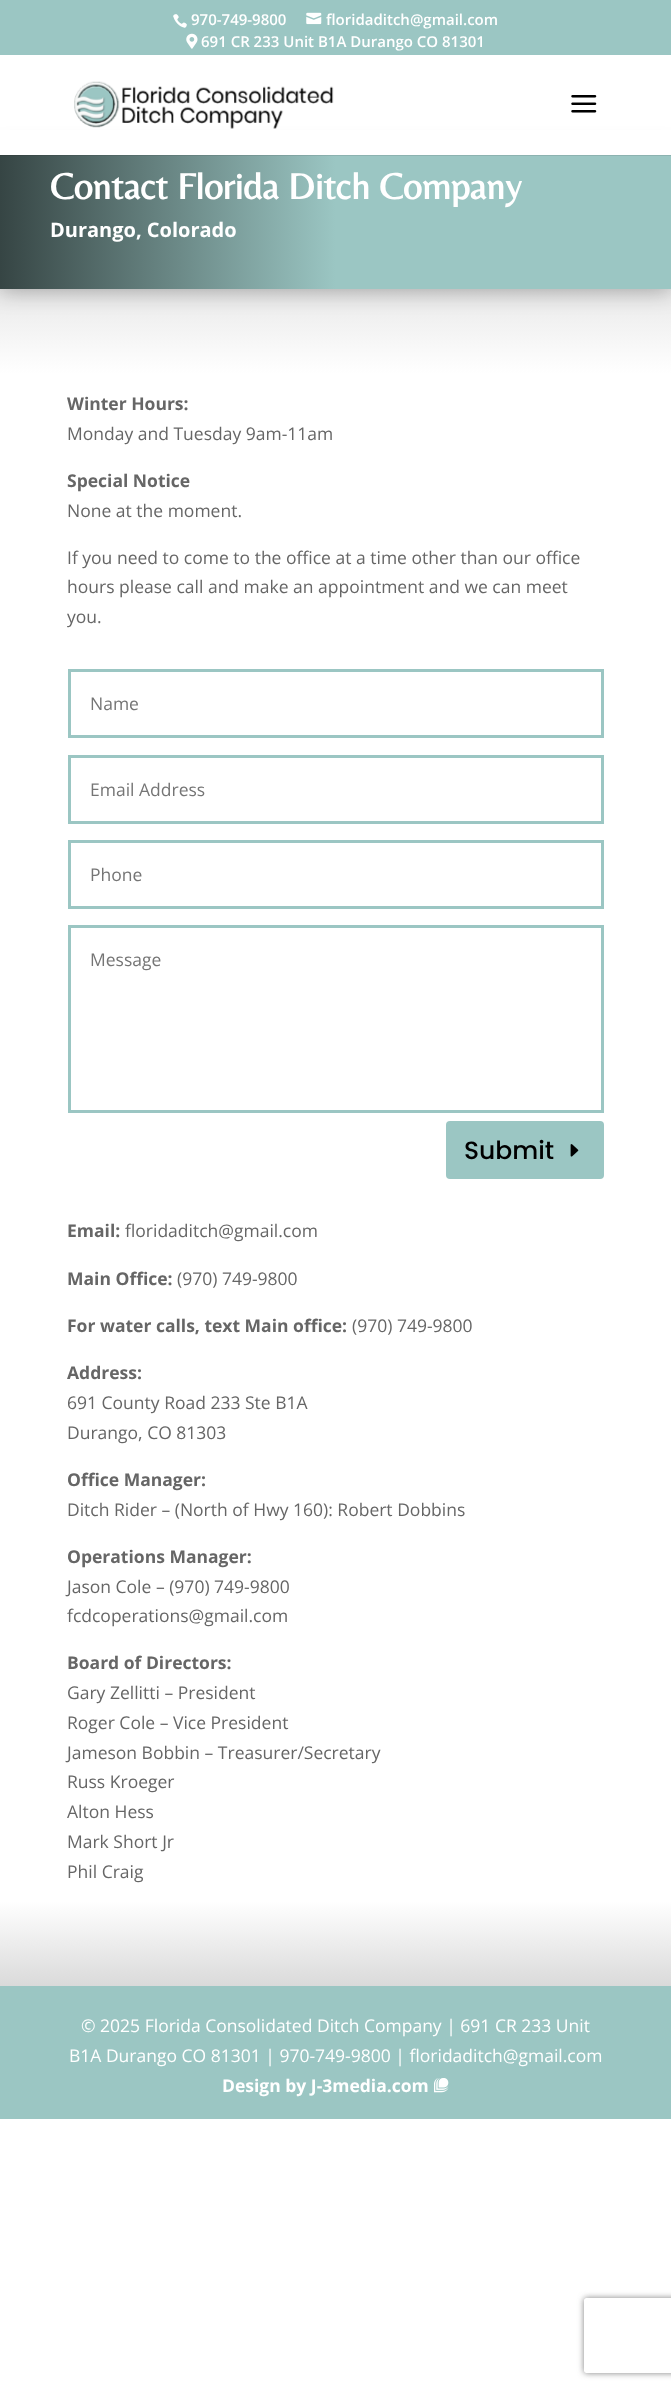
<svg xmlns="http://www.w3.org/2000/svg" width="671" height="2389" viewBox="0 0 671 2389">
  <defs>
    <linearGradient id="g1" gradientUnits="userSpaceOnUse" x1="336" y1="289" x2="336" y2="1986"><stop offset="0" stop-color="#e9e9e9"/><stop offset="0.05" stop-color="#ffffff"/><stop offset="0.95" stop-color="#ffffff"/><stop offset="1" stop-color="#dadada"/></linearGradient>
    <filter id="blur1" x="-50%" y="-200%" width="200%" height="500%"><feGaussianBlur stdDeviation="11"/></filter>
    <linearGradient id="g2" gradientUnits="userSpaceOnUse" x1="0" y1="218" x2="671" y2="218"><stop offset="0" stop-color="#364544"/><stop offset="0.5" stop-color="#9bc6c3"/></linearGradient>
    <linearGradient id="g3" gradientUnits="userSpaceOnUse" x1="0" y1="218" x2="671" y2="218"><stop offset="0" stop-color="#313e3d"/><stop offset="0.5" stop-color="#8cb2b0"/></linearGradient>
    <clipPath id="clip1"><path d="M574 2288H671V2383H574ZM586.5 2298H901.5C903 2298 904 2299 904 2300.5V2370.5C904 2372 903 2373 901.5 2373H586.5C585 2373 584 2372 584 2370.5V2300.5C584 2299 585 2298 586.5 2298Z" clip-rule="evenodd"/></clipPath>
    <filter id="blur2" x="-50%" y="-200%" width="200%" height="500%"><feGaussianBlur stdDeviation="3"/></filter>
  </defs>
  <rect width="100%" height="100%" fill="#ffffff"/>
  <rect x="0" y="0" width="671" height="55" fill="#9bc6c3"/>
  <image x="173" y="14" width="14" height="14" href="img1.png"/>
  <text x="191" y="25" font-family="Open Sans" font-size="15" font-weight="600" fill="#ffffff">970-749-9800</text>
  <image x="306" y="12" width="16" height="13" href="img2.png"/>
  <text x="326" y="25" font-family="Open Sans" font-size="15" font-weight="600" fill="#ffffff">floridaditch@gmail.com</text>
  <image x="186" y="33" width="12" height="16" href="img3.png"/>
  <text x="201" y="47" font-family="Open Sans" font-size="15" font-weight="600" fill="#ffffff">691 CR 233 Unit B1A Durango CO 81301</text>
  <rect x="0" y="289" width="671" height="1697" fill="url(#g1)"/>
  <rect x="0" y="150" width="671" height="141" fill="#000000" fill-opacity="0.3" filter="url(#blur1)"/>
  <rect x="0" y="130" width="671" height="25" fill="#ffffff"/>
  <image x="74" y="81" width="260" height="48" href="img4.png"/>
  <image x="571" y="95" width="26" height="18" href="img5.png"/>
  <rect x="0" y="156" width="671" height="133" fill="url(#g2)"/>
  <rect x="0" y="155" width="671" height="1" fill="url(#g3)"/>
  <text x="50" y="199" font-family="Belleza" font-size="37.5" font-weight="bold" fill="#ffffff">Contact Florida Ditch Company</text>
  <text x="50" y="237" font-family="Open Sans" font-size="20" font-weight="bold" fill="#ffffff">Durango, Colorado</text>
  <text x="67" y="410" font-family="Open Sans" font-size="17.5" font-weight="bold" fill="#666666">Winter Hours:</text>
  <text x="67" y="440" font-family="Open Sans" font-size="17.5" fill="#666666">Monday and Tuesday 9am-11am</text>
  <text x="67" y="487" font-family="Open Sans" font-size="17.5" font-weight="bold" fill="#666666">Special Notice</text>
  <text x="67" y="517" font-family="Open Sans" font-size="17.5" fill="#666666">None at the moment.</text>
  <text x="67" y="564" font-family="Open Sans" font-size="17.5" fill="#666666">If you need to come to the office at a time other than our office</text>
  <text x="67" y="593" font-family="Open Sans" font-size="17.5" fill="#666666">hours please call and make an appointment and we can meet</text>
  <text x="67" y="623" font-family="Open Sans" font-size="17.5" fill="#666666">you.</text>
  <rect x="69.5" y="670.5" width="533" height="66" fill="none" stroke="#9bc6c3" stroke-width="3"/>
  <text x="90" y="710" font-family="Open Sans" font-size="17.5" fill="#757575">Name</text>
  <rect x="69.5" y="756.5" width="533" height="66" fill="none" stroke="#9bc6c3" stroke-width="3"/>
  <text x="90" y="796" font-family="Open Sans" font-size="17.5" fill="#757575">Email Address</text>
  <rect x="69.5" y="841.5" width="533" height="66" fill="none" stroke="#9bc6c3" stroke-width="3"/>
  <text x="90" y="881" font-family="Open Sans" font-size="17.5" fill="#757575">Phone</text>
  <rect x="69.5" y="926.5" width="533" height="185" fill="none" stroke="#9bc6c3" stroke-width="3"/>
  <text x="90" y="966" font-family="Open Sans" font-size="17.5" fill="#757575">Message</text>
  <rect x="446" y="1121" width="158" height="58" rx="4" fill="#9bc6c3"/>
  <text x="464" y="1159" font-family="Poppins" font-size="25" font-weight="500" fill="#000000">Submit</text>
  <image x="570" y="1144" width="9" height="13" href="img6.png"/>
  <text x="67" y="1237" font-family="Open Sans" font-size="17.5" font-weight="bold" fill="#666666">Email:</text>
  <text x="125" y="1237" font-family="Open Sans" font-size="17.5" fill="#666666">floridaditch@gmail.com</text>
  <text x="67" y="1285" font-family="Open Sans" font-size="17.5" font-weight="bold" fill="#666666">Main Office:</text>
  <text x="177" y="1285" font-family="Open Sans" font-size="17.5" fill="#666666">(970) 749-9800</text>
  <text x="67" y="1332" font-family="Open Sans" font-size="17.5" font-weight="bold" fill="#666666">For water calls, text Main office:</text>
  <text x="352" y="1332" font-family="Open Sans" font-size="17.5" fill="#666666">(970) 749-9800</text>
  <text x="67" y="1379" font-family="Open Sans" font-size="17.5" font-weight="bold" fill="#666666">Address:</text>
  <text x="67" y="1409" font-family="Open Sans" font-size="17.5" fill="#666666">691 County Road 233 Ste B1A</text>
  <text x="67" y="1439" font-family="Open Sans" font-size="17.5" fill="#666666">Durango, CO 81303</text>
  <text x="67" y="1486" font-family="Open Sans" font-size="17.5" font-weight="bold" fill="#666666">Office Manager:</text>
  <text x="67" y="1516" font-family="Open Sans" font-size="17.5" fill="#666666">Ditch Rider – (North of Hwy 160): Robert Dobbins</text>
  <text x="67" y="1563" font-family="Open Sans" font-size="17.5" font-weight="bold" fill="#666666">Operations Manager:</text>
  <text x="67" y="1593" font-family="Open Sans" font-size="17.5" fill="#666666">Jason Cole – (970) 749-9800</text>
  <text x="67" y="1622" font-family="Open Sans" font-size="17.5" fill="#666666">fcdcoperations@gmail.com</text>
  <text x="67" y="1669" font-family="Open Sans" font-size="17.5" font-weight="bold" fill="#666666">Board of Directors:</text>
  <text x="67" y="1699" font-family="Open Sans" font-size="17.5" fill="#666666">Gary Zellitti – President</text>
  <text x="67" y="1729" font-family="Open Sans" font-size="17.5" fill="#666666">Roger Cole – Vice President</text>
  <text x="67" y="1759" font-family="Open Sans" font-size="17.5" fill="#666666">Jameson Bobbin – Treasurer/Secretary</text>
  <text x="67" y="1788" font-family="Open Sans" font-size="17.5" fill="#666666">Russ Kroeger</text>
  <text x="67" y="1818" font-family="Open Sans" font-size="17.5" fill="#666666">Alton Hess</text>
  <text x="67" y="1848" font-family="Open Sans" font-size="17.5" fill="#666666">Mark Short Jr</text>
  <text x="67" y="1878" font-family="Open Sans" font-size="17.5" fill="#666666">Phil Craig</text>
  <rect x="0" y="1986" width="671" height="133" fill="#9bc6c3"/>
  <text x="81" y="2032" font-family="Open Sans" font-size="17.5" fill="#ffffff">© 2025 Florida Consolidated Ditch Company | 691 CR 233 Unit</text>
  <text x="69" y="2062" font-family="Open Sans" font-size="17.5" fill="#ffffff">B1A Durango CO 81301 | 970-749-9800 | floridaditch@gmail.com</text>
  <text x="222" y="2092" font-family="Open Sans" font-size="17.5" font-weight="bold" fill="#ffffff">Design by J-3media.com</text>
  <image x="434" y="2078" width="15" height="15" href="img7.png"/>
  <g clip-path="url(#clip1)">
    <rect x="584" y="2298" width="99" height="75" rx="2.5" fill="#808080" filter="url(#blur2)"/>
  </g>
</svg>
